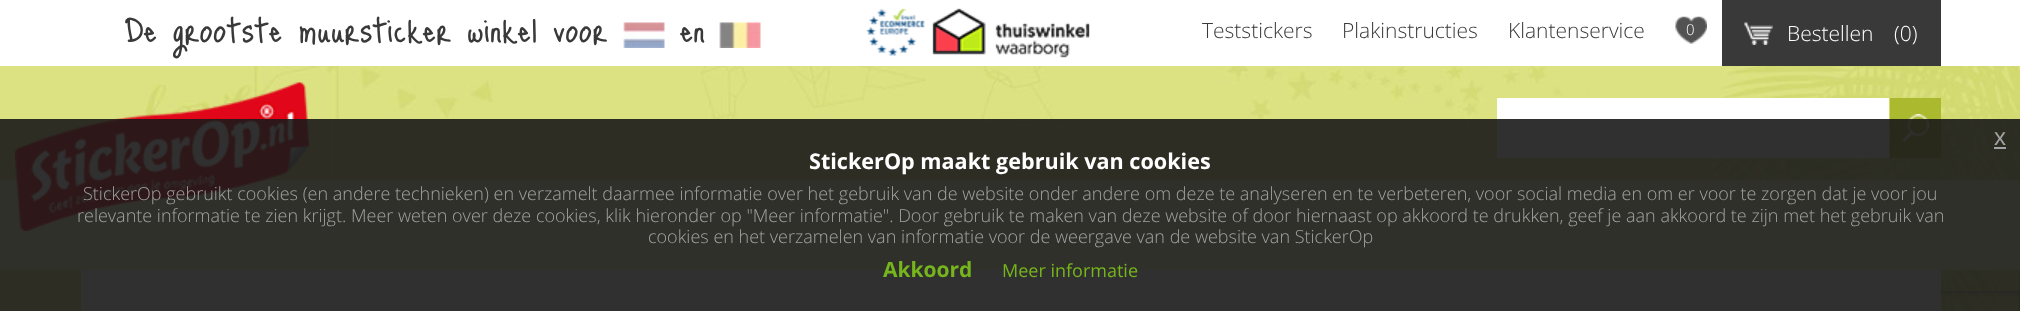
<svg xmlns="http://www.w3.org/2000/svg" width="2020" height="311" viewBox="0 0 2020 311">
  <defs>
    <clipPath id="clip1"><rect x="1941" y="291" width="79" height="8"/></clipPath>
    <filter id="blur1" x="-50%" y="-200%" width="200%" height="500%"><feGaussianBlur stdDeviation="4"/></filter>
  </defs>
  <rect width="100%" height="100%" fill="#ffffff"/>
  <image x="0" y="66" width="2020" height="245" href="img1.png"/>
  <image x="932" y="8" width="158" height="50" href="img2.png"/>
  <text x="125" y="42" font-family="Just Me Again Down Here" font-size="42" fill="#393939">De grootste muursticker winkel voor</text>
  <image x="623" y="22" width="42" height="26" href="img3.png"/>
  <text x="680" y="42" font-family="Just Me Again Down Here" font-size="42" fill="#393939">en</text>
  <image x="719" y="22" width="42" height="26" href="img4.png"/>
  <image x="866" y="8" width="59" height="48" href="img5.png"/>
  <text x="1202" y="38" font-family="Open Sans" font-size="21" font-weight="300" fill="#393939">Teststickers</text>
  <text x="1342" y="38" font-family="Open Sans" font-size="21" font-weight="300" fill="#393939">Plakinstructies</text>
  <text x="1508" y="38" font-family="Open Sans" font-size="21" font-weight="300" fill="#393939">Klantenservice</text>
  <image x="1675" y="16" width="32" height="28" href="img6.png"/>
  <text x="1686" y="35" font-family="Open Sans" font-size="15" font-weight="300" fill="#ffffff">0</text>
  <rect x="1722" y="0" width="219" height="66" fill="#393939"/>
  <image x="1744" y="22" width="29" height="23" href="img7.png"/>
  <text x="1787" y="41" font-family="Open Sans" font-size="21" font-weight="300" fill="#ffffff">Bestellen</text>
  <text x="1894" y="41" font-family="Open Sans" font-size="21" font-weight="300" fill="#ffffff">(0)</text>
  <g clip-path="url(#clip1)">
    <rect x="1916" y="201" width="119" height="90" rx="3" fill="#808080" filter="url(#blur1)"/>
  </g>
  <rect x="0" y="180" width="2020" height="90" fill="#ffffcd"/>
  <image x="15" y="82" width="294" height="149" href="img8.png"/>
  <rect x="1497" y="98" width="392" height="60" fill="#ffffff"/>
  <rect x="1890" y="98" width="51" height="60" fill="#abb92f"/>
  <image x="1902" y="114" width="27" height="29" href="img9.png"/>
  <rect x="81" y="270" width="1860" height="41" fill="#ffffff"/>
  <rect x="0" y="119" width="2020" height="192" fill="#191919" fill-opacity="0.9"/>
  <text x="1994" y="145" font-family="Liberation Sans" font-size="24" fill="#a2a2a2">x</text>
  <rect x="1994" y="147" width="12" height="2" fill="#a2a2a2"/>
  <text x="809" y="169" font-family="Open Sans" font-size="21.6" font-weight="bold" fill="#ffffff">StickerOp maakt gebruik van cookies</text>
  <text x="83" y="200" font-family="Open Sans" font-size="18" font-weight="300" fill="#a2a2a2">StickerOp gebruikt cookies (en andere technieken) en verzamelt daarmee informatie over het gebruik van de website onder andere om deze te analyseren en te verbeteren, voor social media en om er voor te zorgen dat je voor jou</text>
  <text x="77" y="222" font-family="Open Sans" font-size="18" font-weight="300" fill="#a2a2a2">relevante informatie te zien krijgt. Meer weten over deze cookies, klik hieronder op "Meer informatie". Door gebruik te maken van deze website of door hiernaast op akkoord te drukken, geef je aan akkoord te zijn met het gebruik van</text>
  <text x="648" y="243" font-family="Open Sans" font-size="18" font-weight="300" fill="#a2a2a2">cookies en het verzamelen van informatie voor de weergave van de website van StickerOp</text>
  <text x="883" y="277" font-family="Open Sans" font-size="21" font-weight="bold" fill="#76b51b">Akkoord</text>
  <text x="1002" y="277" font-family="Open Sans" font-size="18" fill="#76b51b">Meer informatie</text>
</svg>
